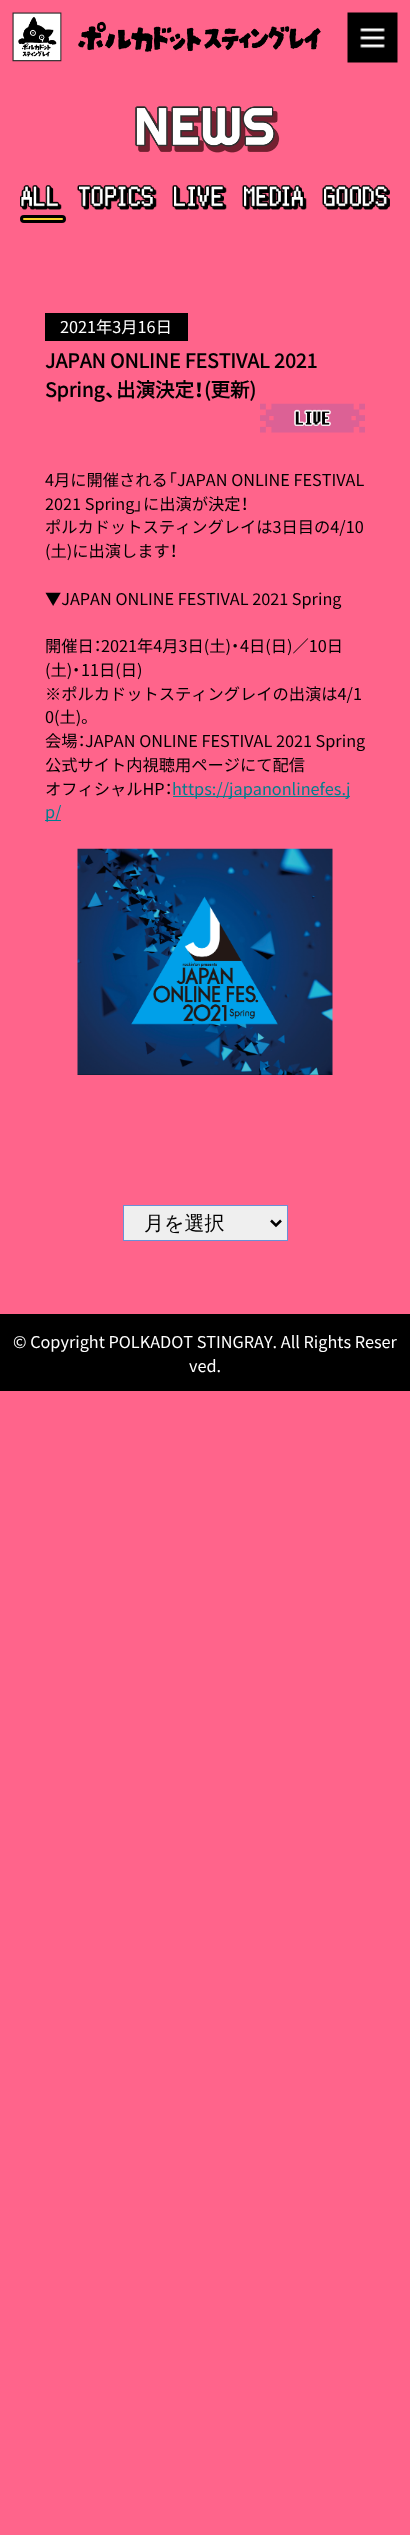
<svg xmlns="http://www.w3.org/2000/svg" width="410" height="2535" viewBox="0 0 410 2535">
  <style>*{font-kerning:none!important;font-variant-ligatures:none!important}</style>
  <rect width="100%" height="100%" fill="#ff648b"/>
  <image x="12" y="12" width="309" height="50" href="img1.png"/>
  <image x="347" y="12" width="51" height="51" href="img2.png"/>
  <image x="135" y="106" width="145" height="47" href="img3.png"/>
  <image x="20" y="185" width="42" height="25" href="img4.png"/>
  <rect x="21.5" y="216.5" width="43" height="5" rx="2.5" fill="#fbd32c" stroke="#000000" stroke-width="3"/>
  <image x="77" y="185" width="80" height="25" href="img5.png"/>
  <image x="172" y="185" width="55" height="25" href="img6.png"/>
  <image x="242" y="185" width="65" height="25" href="img7.png"/>
  <image x="322" y="185" width="68" height="25" href="img8.png"/>
  <rect x="45" y="313" width="143" height="28" fill="#000000"/>
  <text x="60" y="333" font-family="Noto Sans JP" font-size="16.25" font-weight="100" fill="#ffffff">2021年3月16日</text>
  <text x="45" y="368" font-family="Noto Sans JP" font-size="19.5" font-weight="bold" fill="#000000">JAPAN ONLINE FESTIVAL 2021</text>
  <text x="45" y="397" font-family="Noto Sans JP" font-size="19.5" font-weight="bold" fill="#000000">Spring</text>
  <text x="105" y="397" font-family="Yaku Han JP" font-size="19.5" font-weight="bold" fill="#000000">、</text>
  <text x="116" y="397" font-family="Noto Sans JP" font-size="19.5" font-weight="bold" fill="#000000">出演決定</text>
  <text x="194" y="397" font-family="Yaku Han JP" font-size="19.5" font-weight="bold" fill="#000000">！</text>
  <text x="204" y="397" font-family="Noto Sans JP" font-size="19.5" font-weight="bold" fill="#000000">(更新)</text>
  <image x="260" y="403" width="105" height="30" href="img9.png"/>
  <text x="45" y="486" font-family="Noto Sans JP" font-size="16.25" font-weight="100" fill="#000000">4月に開催される</text>
  <text x="168" y="486" font-family="Yaku Han JP" font-size="16.25" fill="#000000">「</text>
  <text x="177" y="486" font-family="Noto Sans JP" font-size="16.25" font-weight="100" fill="#000000">JAPAN ONLINE FESTIVAL</text>
  <text x="45" y="510" font-family="Noto Sans JP" font-size="16.25" font-weight="100" fill="#000000">2021 Spring</text>
  <text x="134" y="510" font-family="Yaku Han JP" font-size="16.25" fill="#000000">」</text>
  <text x="143" y="510" font-family="Noto Sans JP" font-size="16.25" font-weight="100" fill="#000000">に出演が決定</text>
  <text x="241" y="510" font-family="Yaku Han JP" font-size="16.25" fill="#000000">！</text>
  <text x="45" y="533" font-family="Noto Sans JP" font-size="16.25" font-weight="100" fill="#000000">ポルカドットスティングレイは3日目の4/10</text>
  <text x="45" y="557" font-family="Noto Sans JP" font-size="16.25" font-weight="100" fill="#000000">(土)に出演します</text>
  <text x="170" y="557" font-family="Yaku Han JP" font-size="16.25" fill="#000000">！</text>
  <text x="45" y="605" font-family="Noto Sans JP" font-size="16.25" font-weight="100" fill="#000000">▼JAPAN ONLINE FESTIVAL 2021 Spring</text>
  <text x="45" y="652" font-family="Noto Sans JP" font-size="16.25" font-weight="100" fill="#000000">開催日</text>
  <text x="94" y="652" font-family="Yaku Han JP" font-size="16.25" fill="#000000">：</text>
  <text x="101" y="652" font-family="Noto Sans JP" font-size="16.25" font-weight="100" fill="#000000">2021年4月3日(土)</text>
  <text x="231" y="652" font-family="Yaku Han JP" font-size="16.25" fill="#000000">・</text>
  <text x="240" y="652" font-family="Noto Sans JP" font-size="16.25" font-weight="100" fill="#000000">4日(日)／10日</text>
  <text x="45" y="676" font-family="Noto Sans JP" font-size="16.25" font-weight="100" fill="#000000">(土)</text>
  <text x="72" y="676" font-family="Yaku Han JP" font-size="16.25" fill="#000000">・</text>
  <text x="81" y="676" font-family="Noto Sans JP" font-size="16.25" font-weight="100" fill="#000000">11日(日)</text>
  <text x="45" y="700" font-family="Noto Sans JP" font-size="16.25" font-weight="100" fill="#000000">※ポルカドットスティングレイの出演は4/1</text>
  <text x="45" y="723" font-family="Noto Sans JP" font-size="16.25" font-weight="100" fill="#000000">0(土)</text>
  <text x="81" y="723" font-family="Yaku Han JP" font-size="16.25" fill="#000000">。</text>
  <text x="45" y="747" font-family="Noto Sans JP" font-size="16.25" font-weight="100" fill="#000000">会場</text>
  <text x="78" y="747" font-family="Yaku Han JP" font-size="16.25" fill="#000000">：</text>
  <text x="85" y="747" font-family="Noto Sans JP" font-size="16.25" font-weight="100" fill="#000000">JAPAN ONLINE FESTIVAL 2021 Spring</text>
  <text x="45" y="771" font-family="Noto Sans JP" font-size="16.25" font-weight="100" fill="#000000">公式サイト内視聴用ページにて配信</text>
  <text x="45" y="795" font-family="Noto Sans JP" font-size="16.25" font-weight="100" fill="#000000">オフィシャルHP</text>
  <text x="165" y="795" font-family="Yaku Han JP" font-size="16.25" fill="#000000">：</text>
  <rect x="173" y="796" width="177" height="1" fill="#007f8f"/>
  <text x="172" y="795" font-family="Noto Sans JP" font-size="16.25" font-weight="100" fill="#007f8f">https://japanonlinefes.j</text>
  <rect x="45" y="820" width="16" height="1" fill="#007f8f"/>
  <text x="45" y="818" font-family="Noto Sans JP" font-size="16.25" font-weight="100" fill="#007f8f">p/</text>
  <image x="77" y="848" width="256" height="227" href="img10.png"/>
  <rect x="123.5" y="1205.5" width="164" height="35" fill="#efefef" stroke="#6990d7"/>
  <path d="M271 1220.5L276 1225.5L281 1220.5" fill="none" stroke="#000000" stroke-width="2.5"/>
  <text x="144" y="1230" font-family="WenQuanYi Zen Hei" font-size="20" font-weight="500" fill="#000000">月を選択</text>
  <rect x="0" y="1314" width="410" height="77" fill="#000000"/>
  <text x="13" y="1348" font-family="Noto Sans JP" font-size="16.25" font-weight="100" fill="#ffffff">© Copyright POLKADOT STINGRAY. All Rights Reser</text>
  <text x="189" y="1372" font-family="Noto Sans JP" font-size="16.25" font-weight="100" fill="#ffffff">ved.</text>
</svg>
